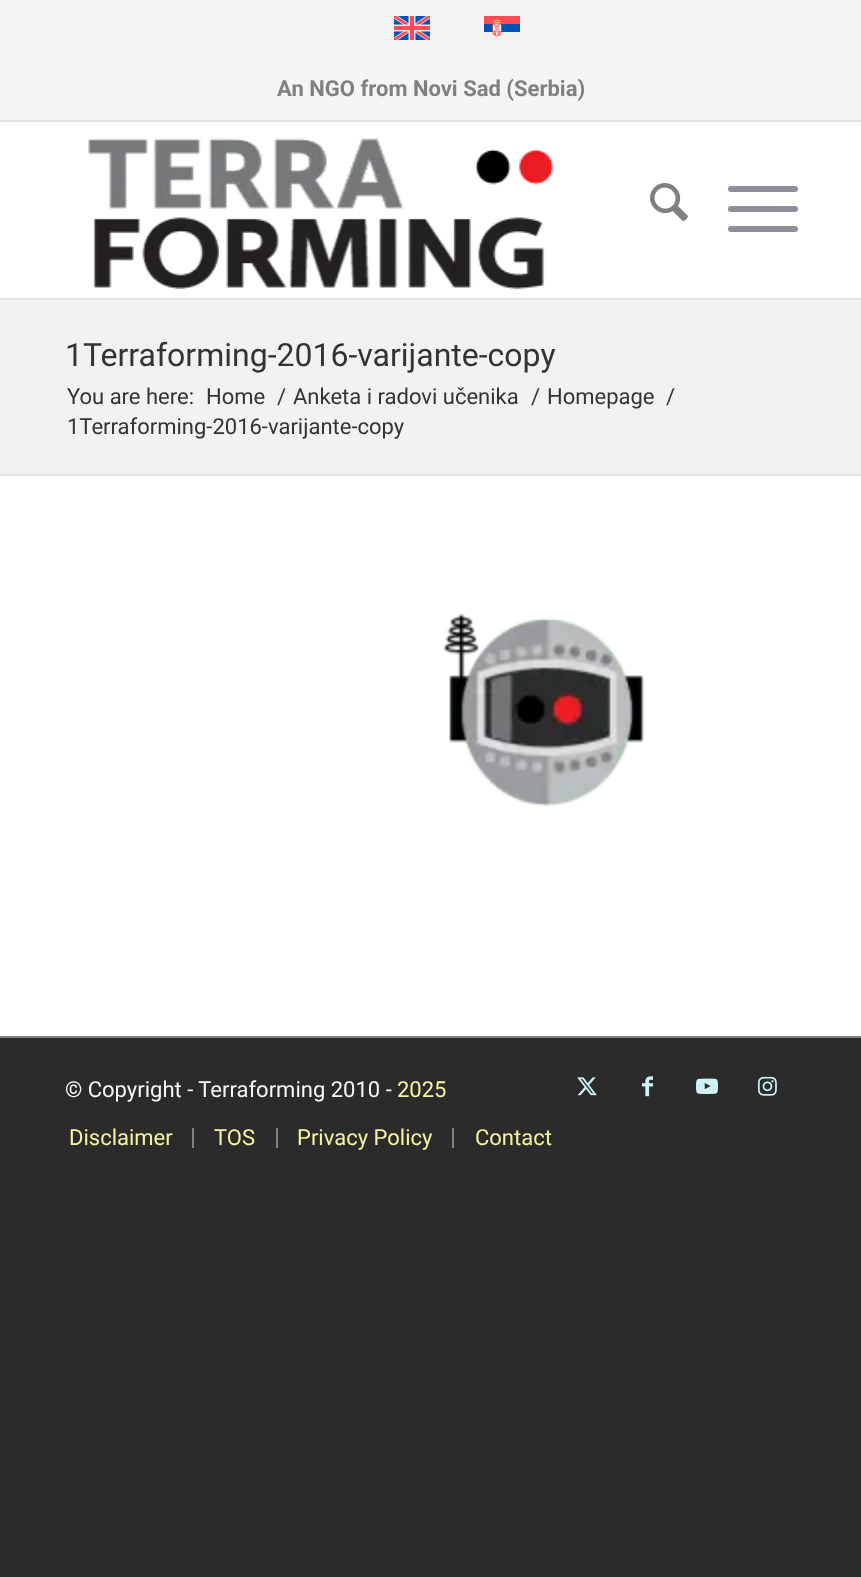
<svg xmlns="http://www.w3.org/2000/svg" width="861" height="1577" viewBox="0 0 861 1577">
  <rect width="100%" height="100%" fill="#2b2b2b"/>
  <rect x="0" y="122" width="861" height="914" fill="#ffffff"/>
  <rect x="0" y="0" width="861" height="120" fill="#f5f5f5"/>
  <rect x="0" y="120" width="861" height="2" fill="#e1e1e1"/>
  <image x="394" y="16" width="36" height="24" href="img1.png"/>
  <image x="484" y="16" width="36" height="24" href="img2.png"/>
  <text x="277" y="96" font-family="Roboto" font-size="22" font-weight="bold" fill="#808080">An NGO from Novi Sad (Serbia)</text>
  <rect x="0" y="298" width="861" height="2" fill="#e1e1e1"/>
  <image x="88" y="138" width="465" height="152" href="img3.png"/>
  <image x="650" y="183" width="38" height="38" href="img4.png"/>
  <rect x="728" y="206" width="70" height="6" rx="3" fill="#8e8f99"/>
  <rect x="728" y="186" width="70" height="6" rx="3" fill="#8e8f99"/>
  <rect x="728" y="226" width="70" height="6" rx="3" fill="#8e8f99"/>
  <rect x="0" y="300" width="861" height="174" fill="#f2f2f2"/>
  <text x="65" y="366" font-family="Roboto" font-size="32" fill="#333333">1Terraforming-2016-varijante-copy</text>
  <text x="67" y="404" font-family="Roboto" font-size="22" fill="#333333">You are here:</text>
  <text x="206" y="404" font-family="Roboto" font-size="22" fill="#333333">Home</text>
  <text x="277" y="404" font-family="Roboto" font-size="22" fill="#333333">/</text>
  <text x="293" y="404" font-family="Roboto" font-size="22" fill="#333333">Anketa i radovi učenika</text>
  <text x="531" y="404" font-family="Roboto" font-size="22" fill="#333333">/</text>
  <text x="547" y="404" font-family="Roboto" font-size="22" fill="#333333">Homepage</text>
  <text x="666" y="404" font-family="Roboto" font-size="22" fill="#333333">/</text>
  <text x="67" y="434" font-family="Roboto" font-size="22" fill="#333333">1Terraforming-2016-varijante-copy</text>
  <rect x="0" y="474" width="861" height="2" fill="#e1e1e1"/>
  <image x="443" y="613" width="202" height="194" href="img5.png"/>
  <rect x="0" y="1036" width="861" height="2" fill="#808080"/>
  <text x="65" y="1097" font-family="Roboto" font-size="22" fill="#f7f7f7">© Copyright - Terraforming 2010 -</text>
  <text x="397" y="1097" font-family="Roboto" font-size="22" fill="#f5f5a1">2025</text>
  <image x="577" y="1077" width="20" height="19" href="img6.png"/>
  <image x="642" y="1076" width="11" height="21" href="img7.png"/>
  <image x="696" y="1078" width="22" height="17" href="img8.png"/>
  <image x="758" y="1076" width="19" height="20" href="img9.png"/>
  <text x="69" y="1145" font-family="Roboto" font-size="22" fill="#f5f5a1">Disclaimer</text>
  <rect x="192" y="1128" width="2" height="20" fill="#808080"/>
  <text x="214" y="1145" font-family="Roboto" font-size="22" fill="#f5f5a1">TOS</text>
  <rect x="276" y="1128" width="2" height="20" fill="#808080"/>
  <text x="297" y="1145" font-family="Roboto" font-size="22" fill="#f5f5a1">Privacy Policy</text>
  <rect x="452" y="1128" width="2" height="20" fill="#808080"/>
  <text x="475" y="1145" font-family="Roboto" font-size="22" fill="#f5f5a1">Contact</text>
</svg>
